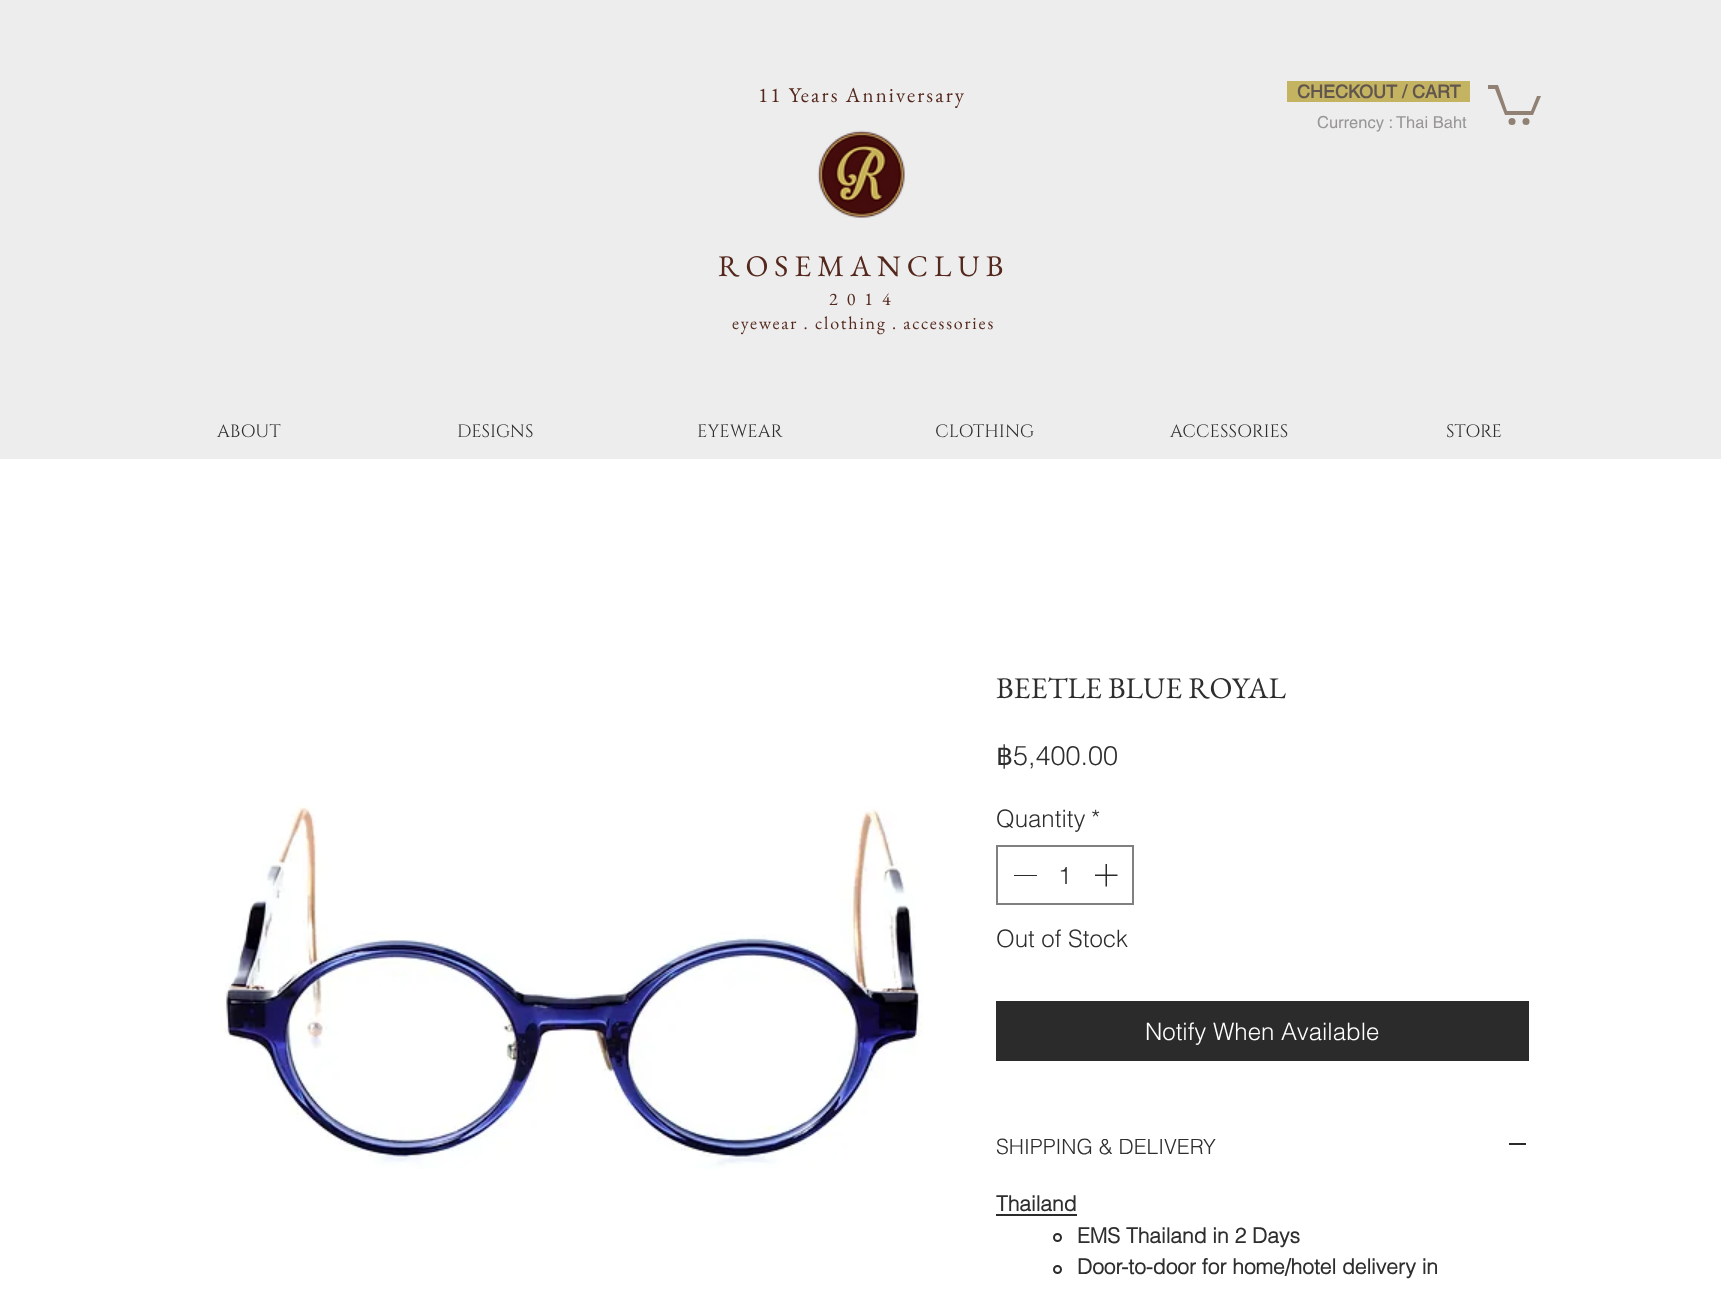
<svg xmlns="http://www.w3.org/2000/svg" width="1721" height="1294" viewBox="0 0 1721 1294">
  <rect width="100%" height="100%" fill="#ffffff"/>
  <rect x="0" y="0" width="1721" height="459" fill="#ededed"/>
  <text x="758" y="102" font-family="EB Garamond" font-size="21" letter-spacing="2.1" fill="#54281d">11 Years Anniversary</text>
  <image x="817" y="130" width="88" height="88" href="img1.png"/>
  <text x="718" y="276" font-family="EB Garamond" font-size="30" letter-spacing="6" fill="#54281d">ROSEMANCLUB</text>
  <text x="829" y="305" font-family="EB Garamond" font-size="18" letter-spacing="9" fill="#54281d">2014</text>
  <text x="732" y="329" font-family="EB Garamond" font-size="18" letter-spacing="1.8" fill="#54281d">eyewear . clothing . accessories</text>
  <rect x="1287" y="81" width="183" height="21" fill="#c4b462"/>
  <text x="1297" y="98" font-family="helvetica" font-size="18" font-weight="bold" fill="#61564e">CHECKOUT / CART</text>
  <path d="M1541 96L1533 115H1505L1495 89H1488V85H1498L1507 111H1531L1537 96" fill="#918174"/>
  <circle cx="1526" cy="121.5" r="3.5" fill="#918174"/>
  <circle cx="1512" cy="121.5" r="3.5" fill="#918174"/>
  <text x="1317" y="128" font-family="helvetica" font-size="16.5" fill="#979595">Currency : Thai Baht</text>
  <text x="217" y="437" font-family="Cinzel" font-size="18" fill="#2f2e2e">ABOUT</text>
  <text x="457" y="437" font-family="Cinzel" font-size="18" fill="#2f2e2e">DESIGNS</text>
  <text x="697" y="437" font-family="Cinzel" font-size="18" fill="#2f2e2e">EYEWEAR</text>
  <text x="935" y="437" font-family="Cinzel" font-size="18" fill="#2f2e2e">CLOTHING</text>
  <text x="1170" y="437" font-family="Cinzel" font-size="18" fill="#2f2e2e">ACCESSORIES</text>
  <text x="1446" y="437" font-family="Cinzel" font-size="18" fill="#2f2e2e">STORE</text>
  <image x="220" y="806" width="704" height="363" href="img2.png"/>
  <text x="996" y="698" font-family="EB Garamond" font-size="30" fill="#2f2e2e">BEETLE BLUE ROYAL</text>
  <text x="996" y="765" font-family="DejaVu Sans" font-size="27" fill="#2f2e2e">฿</text>
  <text x="1013" y="765" font-family="helvetica" font-size="27" font-weight="300" fill="#2f2e2e">5,400.00</text>
  <text x="996" y="827" font-family="helvetica" font-size="24" font-weight="300" fill="#2f2e2e">Quantity</text>
  <text x="1091" y="827" font-family="helvetica" font-size="24" font-weight="300" fill="#2f2e2e">*</text>
  <rect x="997" y="846" width="136" height="58" fill="none" stroke="#808080" stroke-width="2"/>
  <rect x="1014" y="875" width="23" height="1" fill="#2b2b2b"/>
  <text x="1058" y="884" font-family="helvetica" font-size="24" font-weight="300" fill="#2f2e2e">1</text>
  <image x="1095" y="864" width="23" height="23" href="img3.png"/>
  <text x="996" y="947" font-family="helvetica" font-size="24" font-weight="300" fill="#2f2e2e">Out of Stock</text>
  <rect x="996" y="1001" width="533" height="60" fill="#2b2b2b"/>
  <text x="1145" y="1040" font-family="helvetica" font-size="24" font-weight="300" fill="#ffffff">Notify When Available</text>
  <text x="996" y="1154" font-family="helvetica" font-size="21" font-weight="300" fill="#2f2e2e">SHIPPING &amp; DELIVERY</text>
  <rect x="1509" y="1143" width="17" height="2" fill="#2b2b2b"/>
  <text x="996" y="1211" font-family="'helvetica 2'" font-size="21" font-weight="bold" fill="#2f2e2e">Thailand</text>
  <rect x="996" y="1214" width="81" height="2" fill="#2b2b2b"/>
  <circle cx="1057.5" cy="1237.5" r="3.5" fill="none" stroke="#2b2b2b" stroke-width="2"/>
  <text x="1077" y="1243" font-family="'helvetica 2'" font-size="21" font-weight="bold" fill="#2f2e2e">EMS Thailand in 2 Days</text>
  <circle cx="1057.5" cy="1269.5" r="3.5" fill="none" stroke="#2b2b2b" stroke-width="2"/>
  <text x="1077" y="1274" font-family="'helvetica 2'" font-size="21" font-weight="bold" fill="#2f2e2e">Door-to-door for home/hotel delivery in</text>
</svg>
